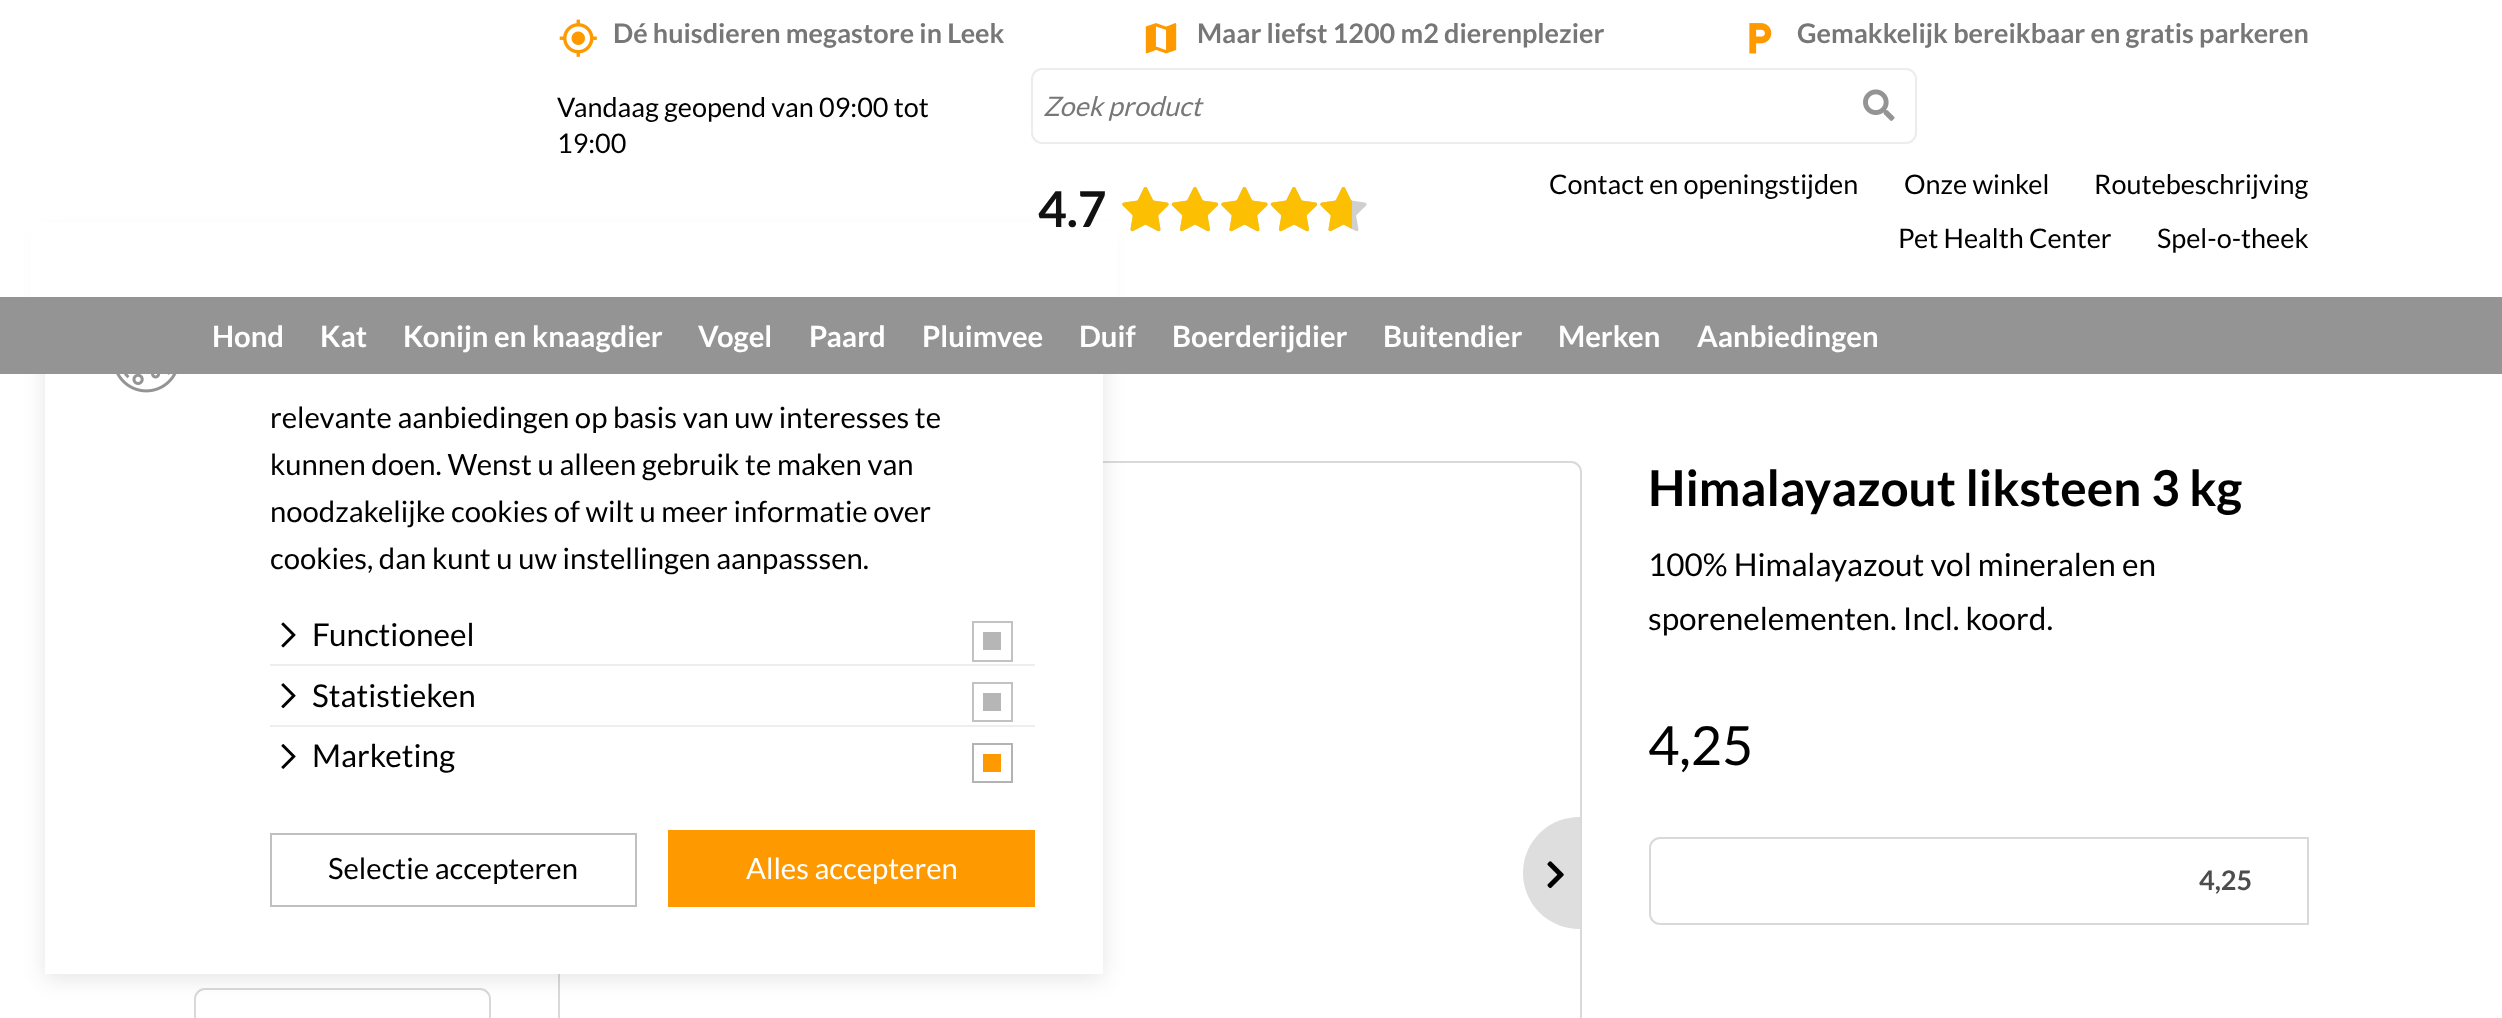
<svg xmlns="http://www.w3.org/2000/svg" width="2502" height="1018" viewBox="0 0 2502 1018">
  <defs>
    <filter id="blur1" x="-50%" y="-200%" width="200%" height="500%"><feGaussianBlur stdDeviation="11"/></filter>
  </defs>
  <rect width="100%" height="100%" fill="#ffffff"/>
  <rect x="195" y="989" width="295" height="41" rx="10" fill="none" stroke="#d9d9d9" stroke-width="2"/>
  <rect x="559" y="462" width="1022" height="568" rx="10" fill="none" stroke="#d9d9d9" stroke-width="2"/>
  <rect x="45" y="236" width="1058" height="743" fill="#000000" fill-opacity="0.1" filter="url(#blur1)"/>
  <rect x="31" y="222" width="1086" height="75" fill="#ffffff"/>
  <image x="559" y="19" width="38" height="38" href="img1.png"/>
  <text x="613" y="43" font-family="Lato" font-size="27" font-weight="bold" fill="#777777">Dé huisdieren megastore in Leek</text>
  <image x="1145" y="23" width="32" height="31" href="img2.png"/>
  <text x="1197" y="43" font-family="Lato" font-size="27" font-weight="bold" fill="#777777">Maar liefst 1200 m2 dierenplezier</text>
  <image x="1749" y="23" width="23" height="31" href="img3.png"/>
  <text x="1797" y="43" font-family="Lato" font-size="27" font-weight="bold" fill="#777777">Gemakkelijk bereikbaar en gratis parkeren</text>
  <text x="557" y="117" font-family="Lato" font-size="27" fill="#000000">Vandaag geopend van 09:00 tot</text>
  <text x="557" y="153" font-family="Lato" font-size="27" fill="#000000">19:00</text>
  <rect x="1032" y="69" width="884" height="74" rx="10" fill="none" stroke="#ececec" stroke-width="2"/>
  <text x="1043" y="116" font-family="Lato" font-size="27" font-style="italic" fill="#777777">Zoek product</text>
  <image x="1863" y="89" width="32" height="32" href="img4.png"/>
  <text x="1038" y="227" font-family="Lato" font-size="49.5" font-weight="bold" fill="#111111">4.7</text>
  <image x="1122" y="187" width="47" height="45" href="img5.png"/>
  <image x="1122" y="187" width="47" height="45" href="img6.png"/>
  <image x="1171" y="187" width="47" height="45" href="img7.png"/>
  <image x="1171" y="187" width="48" height="45" href="img8.png"/>
  <image x="1221" y="187" width="47" height="45" href="img5.png"/>
  <image x="1221" y="187" width="47" height="45" href="img6.png"/>
  <image x="1270" y="187" width="47" height="45" href="img7.png"/>
  <image x="1270" y="187" width="48" height="45" href="img8.png"/>
  <image x="1320" y="187" width="47" height="45" href="img5.png"/>
  <image x="1320" y="187" width="32" height="45" href="img9.png"/>
  <text x="1549" y="194" font-family="Lato" font-size="27" fill="#000000">Contact en openingstijden</text>
  <text x="1904" y="194" font-family="Lato" font-size="27" fill="#000000">Onze winkel</text>
  <text x="2094" y="194" font-family="Lato" font-size="27" fill="#000000">Routebeschrijving</text>
  <text x="1898" y="248" font-family="Lato" font-size="27" fill="#000000">Pet Health Center</text>
  <text x="2157" y="248" font-family="Lato" font-size="27" fill="#000000">Spel-o-theek</text>
  <rect x="0" y="297" width="2502" height="77" fill="#949494"/>
  <text x="212" y="347" font-family="Lato" font-size="29.25" font-weight="bold" fill="#ffffff">Hond</text>
  <text x="320" y="347" font-family="Lato" font-size="29.25" font-weight="bold" fill="#ffffff">Kat</text>
  <text x="403" y="347" font-family="Lato" font-size="29.25" font-weight="bold" fill="#ffffff">Konijn en knaagdier</text>
  <text x="698" y="347" font-family="Lato" font-size="29.25" font-weight="bold" fill="#ffffff">Vogel</text>
  <text x="809" y="347" font-family="Lato" font-size="29.25" font-weight="bold" fill="#ffffff">Paard</text>
  <text x="922" y="347" font-family="Lato" font-size="29.25" font-weight="bold" fill="#ffffff">Pluimvee</text>
  <text x="1079" y="347" font-family="Lato" font-size="29.25" font-weight="bold" fill="#ffffff">Duif</text>
  <text x="1172" y="347" font-family="Lato" font-size="29.25" font-weight="bold" fill="#ffffff">Boerderijdier</text>
  <text x="1383" y="347" font-family="Lato" font-size="29.25" font-weight="bold" fill="#ffffff">Buitendier</text>
  <text x="1558" y="347" font-family="Lato" font-size="29.25" font-weight="bold" fill="#ffffff">Merken</text>
  <text x="1697" y="347" font-family="Lato" font-size="29.25" font-weight="bold" fill="#ffffff">Aanbiedingen</text>
  <path d="M1579 817H1580V929H1579C1548 929 1523 904 1523 873C1523 842 1548 817 1579 817Z" fill="#dedede"/>
  <image x="1547" y="861" width="17" height="28" href="img10.png"/>
  <text x="1648" y="506" font-family="Lato" font-size="49.5" font-weight="bold" fill="#000000">Himalayazout liksteen 3 kg</text>
  <text x="1648" y="576" font-family="Lato" font-size="31.5" fill="#000000">100% Himalayazout vol mineralen en</text>
  <text x="1648" y="630" font-family="Lato" font-size="31.5" fill="#000000">sporenelementen. Incl. koord.</text>
  <text x="1648" y="765" font-family="Lato" font-size="54" fill="#000000">4,25</text>
  <path d="M1660 838H2308V924H1660C1654.5 924 1650 919.5 1650 914V848C1650 842.5 1654.5 838 1660 838Z" fill="none" stroke="#d9d9d9" stroke-width="2"/>
  <text x="2199" y="890" font-family="Lato" font-size="27" font-weight="bold" fill="#4d4d4d">4,25</text>
  <rect x="45" y="374" width="1058" height="600" fill="#ffffff"/>
  <image x="116" y="374" width="61" height="19" href="img11.png"/>
  <text x="270" y="428" font-family="Lato" font-size="29.25" fill="#000000">relevante aanbiedingen op basis van uw interesses te</text>
  <text x="270" y="475" font-family="Lato" font-size="29.25" fill="#000000">kunnen doen. Wenst u alleen gebruik te maken van</text>
  <text x="270" y="522" font-family="Lato" font-size="29.25" fill="#000000">noodzakelijke cookies of wilt u meer informatie over</text>
  <text x="270" y="569" font-family="Lato" font-size="29.25" fill="#000000">cookies, dan kunt u uw instellingen aanpasssen.</text>
  <image x="281" y="622" width="15" height="26" href="img12.png"/>
  <text x="312" y="646" font-family="Lato" font-size="31.5" fill="#000000">Functioneel</text>
  <rect x="973" y="622" width="39" height="39" fill="none" stroke="#c2c2c2" stroke-width="2"/>
  <rect x="983" y="632" width="18" height="18" fill="#b6b6b6"/>
  <rect x="270" y="664" width="765" height="2" fill="#eeeeee"/>
  <image x="281" y="683" width="15" height="26" href="img13.png"/>
  <text x="312" y="707" font-family="Lato" font-size="31.5" fill="#000000">Statistieken</text>
  <rect x="973" y="683" width="39" height="38" fill="none" stroke="#c2c2c2" stroke-width="2"/>
  <rect x="983" y="693" width="18" height="18" fill="#b6b6b6"/>
  <rect x="270" y="725" width="765" height="2" fill="#eeeeee"/>
  <image x="281" y="744" width="15" height="25" href="img14.png"/>
  <text x="312" y="767" font-family="Lato" font-size="31.5" fill="#000000">Marketing</text>
  <rect x="973" y="744" width="39" height="38" fill="none" stroke="#b3b3b3" stroke-width="2"/>
  <rect x="983" y="754" width="18" height="18" fill="#ff9900"/>
  <rect x="271" y="834" width="365" height="72" fill="none" stroke="#c0c0c0" stroke-width="2"/>
  <text x="328" y="879" font-family="Lato" font-size="29.25" fill="#000000">Selectie accepteren</text>
  <rect x="668" y="830" width="367" height="77" fill="#ff9900"/>
  <text x="746" y="879" font-family="Lato" font-size="29.25" fill="#ffffff">Alles accepteren</text>
</svg>
